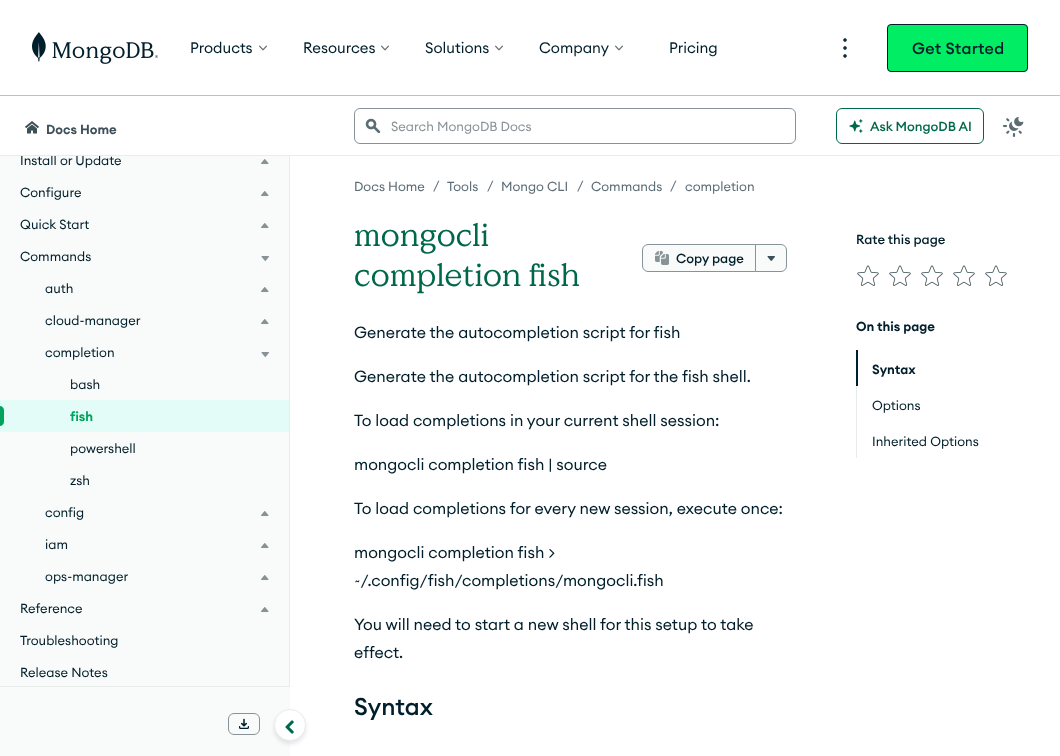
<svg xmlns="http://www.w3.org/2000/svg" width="1060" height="756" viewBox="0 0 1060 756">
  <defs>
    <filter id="blur1" x="-50%" y="-200%" width="200%" height="500%"><feGaussianBlur stdDeviation="2"/></filter>
  </defs>
  <rect width="100%" height="100%" fill="#ffffff"/>
  <rect x="0" y="95" width="1060" height="1" fill="#b8c4c2"/>
  <image x="32" y="32" width="126" height="32" href="img1.png"/>
  <text x="190" y="53" font-family="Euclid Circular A" font-size="15" fill="#001e2b">Products</text>
  <image x="259" y="45" width="8" height="6" href="img2.png"/>
  <text x="303" y="53" font-family="Euclid Circular A" font-size="15" fill="#001e2b">Resources</text>
  <image x="381" y="45" width="8" height="6" href="img2.png"/>
  <text x="425" y="53" font-family="Euclid Circular A" font-size="15" fill="#001e2b">Solutions</text>
  <image x="495" y="45" width="8" height="6" href="img2.png"/>
  <text x="539" y="53" font-family="Euclid Circular A" font-size="15" fill="#001e2b">Company</text>
  <image x="615" y="45" width="8" height="6" href="img2.png"/>
  <text x="669" y="53" font-family="Euclid Circular A" font-size="15" fill="#001e2b">Pricing</text>
  <image x="843" y="38" width="4" height="20" href="img3.png"/>
  <rect x="887.5" y="24.5" width="140" height="47" rx="3.5" fill="#00ed64" stroke="#001e2b"/>
  <text x="912" y="54" font-family="Euclid Circular A" font-size="16" font-weight="500" letter-spacing="0.25" fill="#001e2b">Get Started</text>
  <rect x="0" y="156" width="290" height="600" fill="#f9fbfa"/>
  <text x="20" y="165" font-family="Euclid Circular A" font-size="13" fill="#001e2b">Install or Update</text>
  <rect x="0" y="155" width="290" height="1" fill="#e8edeb"/>
  <image x="25" y="121" width="14" height="13" href="img4.png"/>
  <text x="46" y="134" font-family="Euclid Circular A" font-size="13" font-weight="600" fill="#3d4f58">Docs Home</text>
  <rect x="0" y="686" width="290" height="1" fill="#e8edeb"/>
  <rect x="289" y="156" width="1" height="530" fill="#e8edeb"/>
  <image x="261" y="159" width="8" height="5" href="img5.png"/>
  <text x="20" y="197" font-family="Euclid Circular A" font-size="13" fill="#001e2b">Configure</text>
  <image x="261" y="191" width="8" height="5" href="img5.png"/>
  <text x="20" y="229" font-family="Euclid Circular A" font-size="13" fill="#001e2b">Quick Start</text>
  <image x="261" y="223" width="8" height="5" href="img5.png"/>
  <text x="20" y="261" font-family="Euclid Circular A" font-size="13" fill="#001e2b">Commands</text>
  <image x="261" y="256" width="8" height="5" href="img6.png"/>
  <text x="45" y="293" font-family="Euclid Circular A" font-size="13" fill="#001e2b">auth</text>
  <image x="261" y="287" width="8" height="5" href="img5.png"/>
  <text x="45" y="325" font-family="Euclid Circular A" font-size="13" fill="#001e2b">cloud-manager</text>
  <image x="261" y="319" width="8" height="5" href="img5.png"/>
  <text x="45" y="357" font-family="Euclid Circular A" font-size="13" fill="#001e2b">completion</text>
  <image x="261" y="352" width="8" height="5" href="img6.png"/>
  <text x="70" y="389" font-family="Euclid Circular A" font-size="13" fill="#001e2b">bash</text>
  <rect x="0" y="400" width="289" height="32" fill="#e3fcf7"/>
  <path d="M0 406C2 406 4 408 4 410V422C4 424 2 426 0 426Z" fill="#00a35c"/>
  <text x="70" y="421" font-family="Euclid Circular A" font-size="13" font-weight="600" fill="#00a35c">fish</text>
  <text x="70" y="453" font-family="Euclid Circular A" font-size="13" fill="#001e2b">powershell</text>
  <text x="70" y="485" font-family="Euclid Circular A" font-size="13" fill="#001e2b">zsh</text>
  <text x="45" y="517" font-family="Euclid Circular A" font-size="13" fill="#001e2b">config</text>
  <image x="261" y="511" width="8" height="5" href="img5.png"/>
  <text x="45" y="549" font-family="Euclid Circular A" font-size="13" fill="#001e2b">iam</text>
  <image x="261" y="543" width="8" height="5" href="img5.png"/>
  <text x="45" y="581" font-family="Euclid Circular A" font-size="13" fill="#001e2b">ops-manager</text>
  <image x="261" y="575" width="8" height="5" href="img5.png"/>
  <text x="20" y="613" font-family="Euclid Circular A" font-size="13" fill="#001e2b">Reference</text>
  <image x="261" y="607" width="8" height="5" href="img5.png"/>
  <text x="20" y="645" font-family="Euclid Circular A" font-size="13" fill="#001e2b">Troubleshooting</text>
  <text x="20" y="677" font-family="Euclid Circular A" font-size="13" fill="#001e2b">Release Notes</text>
  <rect x="228.5" y="713.5" width="31" height="21" rx="5.5" fill="none" stroke="#889397"/>
  <image x="239" y="718" width="10" height="11" href="img7.png"/>
  <rect x="274" y="712" width="32" height="32" rx="16" fill="#001e2b" fill-opacity="0.1" filter="url(#blur1)"/>
  <circle cx="290" cy="725" r="15.5" fill="#ffffff" stroke="#e8edeb"/>
  <image x="285" y="720" width="9" height="14" href="img8.png"/>
  <rect x="290" y="155" width="770" height="1" fill="#e8edeb"/>
  <rect x="354.5" y="108.5" width="441" height="35" rx="5.5" fill="none" stroke="#889397"/>
  <image x="365" y="118" width="16" height="16" href="img9.png"/>
  <text x="391" y="131" font-family="Euclid Circular A" font-size="13" fill="#889397">Search MongoDB Docs</text>
  <rect x="836.5" y="108.5" width="147" height="35" rx="5.5" fill="none" stroke="#00684a"/>
  <image x="849" y="119" width="14" height="14" href="img10.png"/>
  <text x="870" y="131" font-family="Euclid Circular A" font-size="13" font-weight="500" fill="#00684a">Ask MongoDB AI</text>
  <image x="1003" y="117" width="21" height="20" href="img11.png"/>
  <text x="354" y="191" font-family="Euclid Circular A" font-size="13" fill="#5c6c75">Docs Home</text>
  <text x="433" y="190" font-family="Euclid Circular A" font-size="13" fill="#5c6c75">/</text>
  <text x="447" y="191" font-family="Euclid Circular A" font-size="13" fill="#5c6c75">Tools</text>
  <text x="487" y="190" font-family="Euclid Circular A" font-size="13" fill="#5c6c75">/</text>
  <text x="501" y="191" font-family="Euclid Circular A" font-size="13" fill="#5c6c75">Mongo CLI</text>
  <text x="577" y="190" font-family="Euclid Circular A" font-size="13" fill="#5c6c75">/</text>
  <text x="591" y="191" font-family="Euclid Circular A" font-size="13" fill="#5c6c75">Commands</text>
  <text x="670" y="190" font-family="Euclid Circular A" font-size="13" fill="#5c6c75">/</text>
  <text x="685" y="191" font-family="Euclid Circular A" font-size="13" fill="#5c6c75">completion</text>
  <text x="354" y="246" font-family="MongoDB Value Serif" font-size="32" fill="#00684a">mongocli</text>
  <text x="354" y="286" font-family="MongoDB Value Serif" font-size="32" fill="#00684a">completion fish</text>
  <path d="M755.5 244.5H781C784 244.5 786.5 247 786.5 250V266C786.5 269 784 271.5 781 271.5H755.5Z" fill="#f9fbfa" stroke="#889397"/>
  <path d="M648 244.5H755.5V271.5H648C645 271.5 642.5 269 642.5 266V250C642.5 247 645 244.5 648 244.5Z" fill="#f9fbfa" stroke="#889397"/>
  <image x="655" y="251" width="14" height="14" href="img12.png"/>
  <text x="676" y="263" font-family="Euclid Circular A" font-size="13" font-weight="500" fill="#001e2b">Copy page</text>
  <image x="767" y="256" width="8" height="5" href="img13.png"/>
  <text x="354" y="338" font-family="Euclid Circular A" font-size="16" fill="#001e2b">Generate the autocompletion script for fish</text>
  <text x="354" y="382" font-family="Euclid Circular A" font-size="16" fill="#001e2b">Generate the autocompletion script for the fish shell.</text>
  <text x="354" y="426" font-family="Euclid Circular A" font-size="16" fill="#001e2b">To load completions in your current shell session:</text>
  <text x="354" y="470" font-family="Euclid Circular A" font-size="16" fill="#001e2b">mongocli completion fish | source</text>
  <text x="354" y="514" font-family="Euclid Circular A" font-size="16" fill="#001e2b">To load completions for every new session, execute once:</text>
  <text x="354" y="558" font-family="Euclid Circular A" font-size="16" fill="#001e2b">mongocli completion fish &gt;</text>
  <text x="354" y="586" font-family="Euclid Circular A" font-size="16" fill="#001e2b">~/.config/fish/completions/mongocli.fish</text>
  <text x="354" y="630" font-family="Euclid Circular A" font-size="16" fill="#001e2b">You will need to start a new shell for this setup to take</text>
  <text x="354" y="658" font-family="Euclid Circular A" font-size="16" fill="#001e2b">effect.</text>
  <text x="354" y="715" font-family="Euclid Circular A" font-size="24" font-weight="500" fill="#001e2b">Syntax</text>
  <text x="856" y="244" font-family="Euclid Circular A" font-size="13" font-weight="500" fill="#001e2b">Rate this page</text>
  <image x="857" y="265" width="22" height="21" href="img14.png"/>
  <image x="889" y="265" width="22" height="21" href="img14.png"/>
  <image x="921" y="265" width="22" height="21" href="img14.png"/>
  <image x="953" y="265" width="22" height="21" href="img14.png"/>
  <image x="985" y="265" width="22" height="21" href="img14.png"/>
  <text x="856" y="331" font-family="Euclid Circular A" font-size="13" font-weight="600" fill="#001e2b">On this page</text>
  <rect x="856" y="350" width="2" height="36" fill="#001e2b"/>
  <text x="872" y="374" font-family="Euclid Circular A" font-size="13" font-weight="600" fill="#001e2b">Syntax</text>
  <rect x="856" y="386" width="1" height="72" fill="#e8edeb"/>
  <text x="872" y="410" font-family="Euclid Circular A" font-size="13" fill="#001e2b">Options</text>
  <text x="872" y="446" font-family="Euclid Circular A" font-size="13" fill="#001e2b">Inherited Options</text>
</svg>
